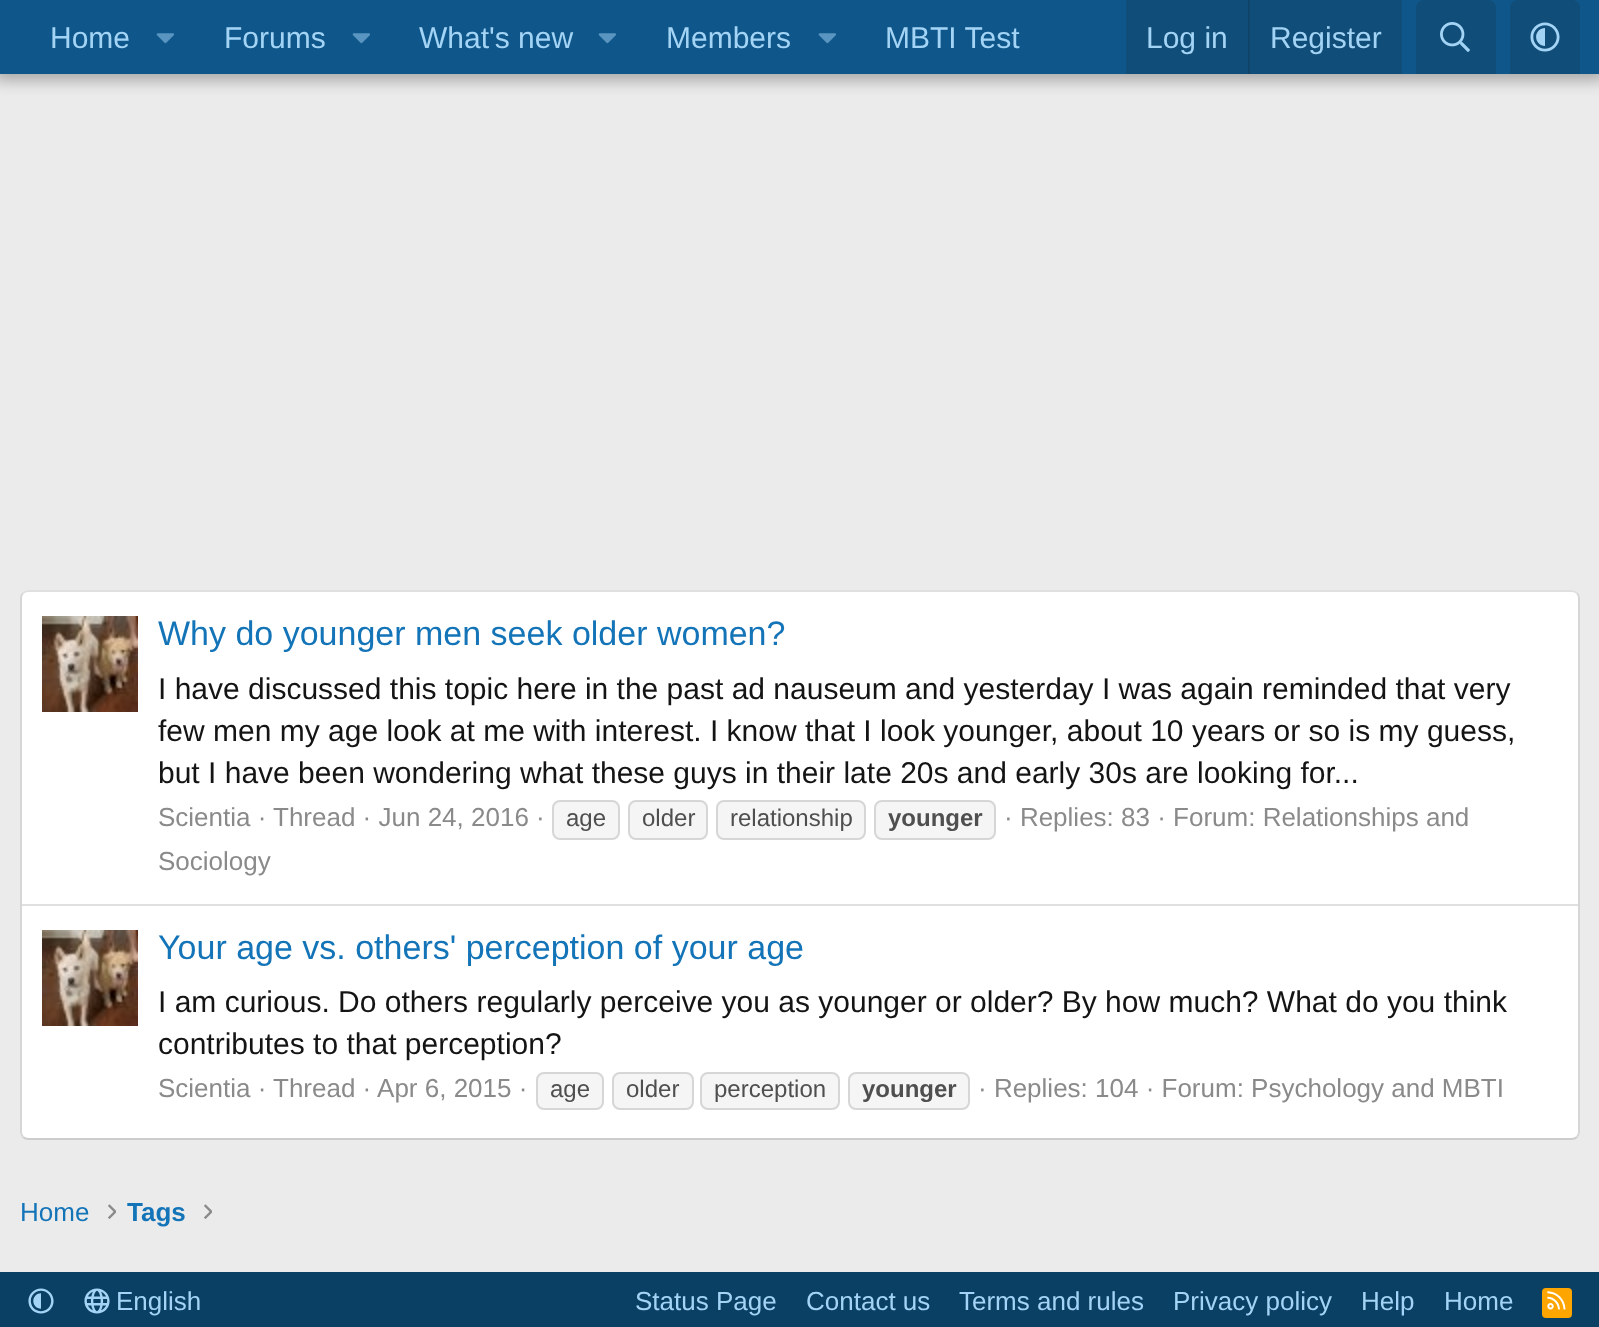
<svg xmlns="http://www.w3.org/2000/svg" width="1599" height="1327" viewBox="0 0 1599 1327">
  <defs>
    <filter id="blur1" x="-50%" y="-200%" width="200%" height="500%"><feGaussianBlur stdDeviation="8"/></filter>
  </defs>
  <rect width="100%" height="100%" fill="#ebebeb"/>
  <rect x="-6" y="-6" width="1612" height="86" fill="#000000" fill-opacity="0.3" filter="url(#blur1)"/>
  <rect x="0" y="0" width="1599" height="74" fill="#0f578a"/>
  <text x="50" y="48" font-family="Liberation Sans" font-size="30" fill="#a3d4f5">Home</text>
  <image x="156" y="33" width="18" height="11" href="img1.png"/>
  <text x="224" y="48" font-family="Liberation Sans" font-size="30" fill="#a3d4f5">Forums</text>
  <image x="352" y="33" width="18" height="11" href="img1.png"/>
  <text x="419" y="48" font-family="Liberation Sans" font-size="30" fill="#a3d4f5">What's new</text>
  <image x="598" y="33" width="18" height="11" href="img1.png"/>
  <text x="666" y="48" font-family="Liberation Sans" font-size="30" fill="#a3d4f5">Members</text>
  <image x="818" y="33" width="18" height="11" href="img1.png"/>
  <text x="885" y="48" font-family="Liberation Sans" font-size="30" fill="#a3d4f5">MBTI Test</text>
  <rect x="1126" y="0" width="276" height="74" fill="#104d78"/>
  <text x="1146" y="48" font-family="Liberation Sans" font-size="30" fill="#a3d4f5">Log in</text>
  <rect x="1248" y="0" width="2" height="74" fill="#114469"/>
  <text x="1270" y="48" font-family="Liberation Sans" font-size="30" fill="#a3d4f5">Register</text>
  <path d="M1424 0H1488C1492.5 0 1496 3.5 1496 8V74H1416V8C1416 3.5 1419.5 0 1424 0Z" fill="#104d78"/>
  <image x="1440" y="22" width="30" height="30" href="img2.png"/>
  <path d="M1518 0H1572C1576.5 0 1580 3.5 1580 8V74H1510V8C1510 3.5 1513.5 0 1518 0Z" fill="#104d78"/>
  <image x="1530" y="22" width="30" height="30" href="img3.png"/>
  <rect x="20" y="590" width="1560" height="550" rx="8" fill="#ffffff"/>
  <path d="M23 593C24.5 591.5 26 591 28 591H1572C1574 591 1575.5 591.5 1577 593" fill="none" stroke="#e0e0e0" stroke-width="2"/>
  <path d="M1577 593C1578.5 594.5 1579 596 1579 598V1132C1579 1134 1578.5 1135.5 1577 1137" fill="none" stroke="#d6d6d6" stroke-width="2"/>
  <path d="M1577 1137C1575.5 1138.5 1574 1139 1572 1139H28C26 1139 24.5 1138.5 23 1137" fill="none" stroke="#cccccc" stroke-width="2"/>
  <path d="M23 1137C21.5 1135.5 21 1134 21 1132V598C21 596 21.5 594.5 23 593" fill="none" stroke="#d6d6d6" stroke-width="2"/>
  <image x="42" y="616" width="96" height="96" href="img4.png"/>
  <text x="158" y="645" font-family="Liberation Sans" font-size="34" fill="#1474b8">Why do younger men seek older women?</text>
  <text x="158" y="699" font-family="Liberation Sans" font-size="30" fill="#141414">I have discussed this topic here in the past ad nauseum and yesterday I was again reminded that very</text>
  <text x="158" y="741" font-family="Liberation Sans" font-size="30" fill="#141414">few men my age look at me with interest. I know that I look younger, about 10 years or so is my guess,</text>
  <text x="158" y="783" font-family="Liberation Sans" font-size="30" fill="#141414">but I have been wondering what these guys in their late 20s and early 30s are looking for...</text>
  <text x="158" y="826" font-family="Liberation Sans" font-size="26" fill="#8a8a8a">Scientia ·</text>
  <text x="273" y="826" font-family="Liberation Sans" font-size="26" fill="#8a8a8a">Thread · Jun 24, 2016 ·</text>
  <rect x="553" y="801" width="66" height="38" rx="7" fill="#f5f5f5" stroke="#d6d6d6" stroke-width="2"/>
  <text x="566" y="826" font-family="Liberation Sans" font-size="24" fill="#4f4f4f">age</text>
  <rect x="629" y="801" width="78" height="38" rx="7" fill="#f5f5f5" stroke="#d6d6d6" stroke-width="2"/>
  <text x="642" y="826" font-family="Liberation Sans" font-size="24" fill="#4f4f4f">older</text>
  <rect x="717" y="801" width="148" height="38" rx="7" fill="#f5f5f5" stroke="#d6d6d6" stroke-width="2"/>
  <text x="730" y="826" font-family="Liberation Sans" font-size="24" fill="#4f4f4f">relationship</text>
  <rect x="875" y="801" width="120" height="38" rx="7" fill="#f5f5f5" stroke="#d6d6d6" stroke-width="2"/>
  <text x="888" y="826" font-family="Liberation Sans" font-size="24" font-weight="bold" fill="#4f4f4f">younger</text>
  <text x="1004" y="826" font-family="Liberation Sans" font-size="26" fill="#8a8a8a">· Replies: 83 · Forum: Relationships and</text>
  <text x="158" y="870" font-family="Liberation Sans" font-size="26" fill="#8a8a8a">Sociology</text>
  <rect x="22" y="904" width="1556" height="2" fill="#e0e0e0"/>
  <image x="42" y="930" width="96" height="96" href="img4.png"/>
  <text x="158" y="959" font-family="Liberation Sans" font-size="34" fill="#1474b8">Your age vs. others' perception of your age</text>
  <text x="158" y="1012" font-family="Liberation Sans" font-size="30" fill="#141414">I am curious. Do others regularly perceive you as younger or older? By how much? What do you think</text>
  <text x="158" y="1054" font-family="Liberation Sans" font-size="30" fill="#141414">contributes to that perception?</text>
  <text x="158" y="1097" font-family="Liberation Sans" font-size="26" fill="#8a8a8a">Scientia ·</text>
  <text x="273" y="1097" font-family="Liberation Sans" font-size="26" fill="#8a8a8a">Thread · Apr 6, 2015 ·</text>
  <rect x="537" y="1073" width="66" height="36" rx="7" fill="#f5f5f5" stroke="#d6d6d6" stroke-width="2"/>
  <text x="550" y="1097" font-family="Liberation Sans" font-size="24" fill="#4f4f4f">age</text>
  <rect x="613" y="1073" width="80" height="36" rx="7" fill="#f5f5f5" stroke="#d6d6d6" stroke-width="2"/>
  <text x="626" y="1097" font-family="Liberation Sans" font-size="24" fill="#4f4f4f">older</text>
  <rect x="701" y="1073" width="138" height="36" rx="7" fill="#f5f5f5" stroke="#d6d6d6" stroke-width="2"/>
  <text x="714" y="1097" font-family="Liberation Sans" font-size="24" fill="#4f4f4f">perception</text>
  <rect x="849" y="1073" width="120" height="36" rx="7" fill="#f5f5f5" stroke="#d6d6d6" stroke-width="2"/>
  <text x="862" y="1097" font-family="Liberation Sans" font-size="24" font-weight="bold" fill="#4f4f4f">younger</text>
  <text x="978" y="1097" font-family="Liberation Sans" font-size="26" fill="#8a8a8a">· Replies: 104 · Forum: Psychology and MBTI</text>
  <text x="20" y="1221" font-family="Liberation Sans" font-size="26" fill="#1474b8">Home</text>
  <image x="108" y="1204" width="8" height="15" href="img5.png"/>
  <text x="127" y="1221" font-family="Liberation Sans" font-size="26" font-weight="bold" fill="#1474b8">Tags</text>
  <image x="204" y="1204" width="8" height="15" href="img5.png"/>
  <rect x="0" y="1272" width="1599" height="55" fill="#0b4065"/>
  <image x="28" y="1288" width="26" height="26" href="img6.png"/>
  <image x="84" y="1288" width="26" height="26" href="img7.png"/>
  <text x="116" y="1310" font-family="Liberation Sans" font-size="26" fill="#a3d4f5">English</text>
  <text x="635" y="1310" font-family="Liberation Sans" font-size="26" fill="#a3d4f5">Status Page</text>
  <text x="806" y="1310" font-family="Liberation Sans" font-size="26" fill="#a3d4f5">Contact us</text>
  <text x="959" y="1310" font-family="Liberation Sans" font-size="26" fill="#a3d4f5">Terms and rules</text>
  <text x="1173" y="1310" font-family="Liberation Sans" font-size="26" fill="#a3d4f5">Privacy policy</text>
  <text x="1361" y="1310" font-family="Liberation Sans" font-size="26" fill="#a3d4f5">Help</text>
  <text x="1444" y="1310" font-family="Liberation Sans" font-size="26" fill="#a3d4f5">Home</text>
  <rect x="1542" y="1288" width="30" height="30" rx="4" fill="#ffa500"/>
  <image x="1547" y="1291" width="19" height="19" href="img8.png"/>
</svg>
